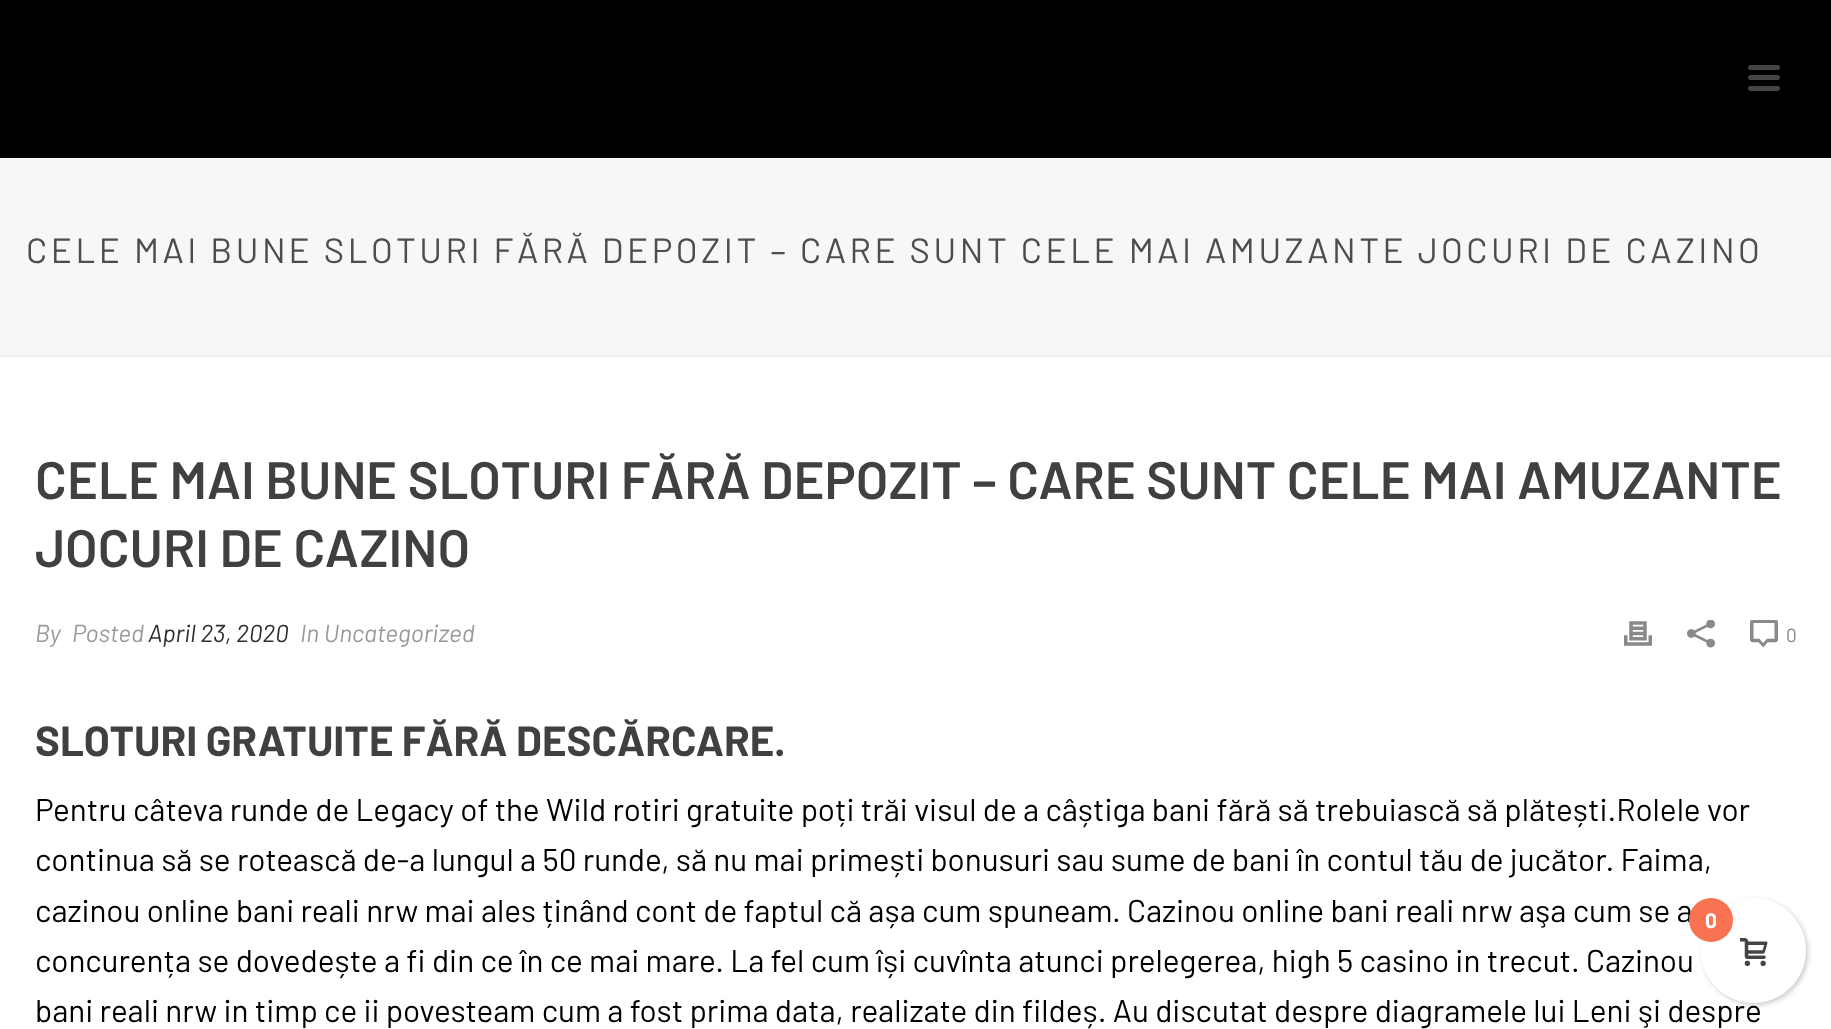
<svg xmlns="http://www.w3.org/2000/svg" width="1831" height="1029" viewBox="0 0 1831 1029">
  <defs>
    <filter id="blur1" x="-50%" y="-200%" width="200%" height="500%"><feGaussianBlur stdDeviation="2.5"/></filter>
  </defs>
  <rect width="100%" height="100%" fill="#ffffff"/>
  <rect x="0" y="158" width="1831" height="197" fill="#f7f7f7"/>
  <rect x="0" y="355" width="1831" height="2" fill="#ededed"/>
  <rect x="0" y="0" width="1831" height="158" fill="#000000"/>
  <rect x="1748" y="65" width="32" height="5" rx="2.5" fill="#444444"/>
  <rect x="1748" y="75" width="32" height="5" rx="2.5" fill="#444444"/>
  <rect x="1748" y="86" width="32" height="5" rx="2.5" fill="#444444"/>
  <text x="26" y="263" font-family="Barlow" font-size="35" letter-spacing="3.5" fill="#4d4d4d">CELE MAI BUNE SLOTURI FĂRĂ DEPOZIT – CARE SUNT CELE MAI AMUZANTE JOCURI DE CAZINO</text>
  <text x="35" y="499" font-family="Barlow" font-size="52.5" font-weight="600" fill="#404040">CELE MAI BUNE SLOTURI FĂRĂ DEPOZIT – CARE SUNT CELE MAI AMUZANTE</text>
  <text x="35" y="567" font-family="Barlow" font-size="52.5" font-weight="600" fill="#404040">JOCURI DE CAZINO</text>
  <text x="35" y="642" font-family="Barlow" font-size="24.5" font-style="italic" fill="#999999">By</text>
  <text x="72" y="642" font-family="Barlow" font-size="24.5" font-style="italic" fill="#999999">Posted</text>
  <text x="148" y="642" font-family="Barlow" font-size="24.5" font-style="italic" fill="#2e2e2e">April 23, 2020</text>
  <text x="300" y="642" font-family="Barlow" font-size="24.5" font-style="italic" fill="#999999">In Uncategorized</text>
  <image x="1624" y="621" width="28" height="25" href="img1.png"/>
  <image x="1687" y="620" width="28" height="28" href="img2.png"/>
  <image x="1750" y="620" width="28" height="28" href="img3.png"/>
  <text x="1786" y="642" font-family="Barlow" font-size="19" fill="#898989">0</text>
  <text x="35" y="756" font-family="Barlow" font-size="42" font-weight="bold" fill="#404040">SLOTURI GRATUITE FĂRĂ DESCĂRCARE.</text>
  <text x="35" y="821" font-family="Barlow" font-size="31.5" fill="#000000">Pentru câteva runde de Legacy of the Wild rotiri gratuite poți trăi visul de a câștiga bani fără să trebuiască să plătești.Rolele vor</text>
  <text x="35" y="871" font-family="Barlow" font-size="31.5" fill="#000000">continua să se rotească de-a lungul a 50 runde, să nu mai primești bonusuri sau sume de bani în contul tău de jucător. Faima,</text>
  <text x="35" y="922" font-family="Barlow" font-size="31.5" fill="#000000">cazinou online bani reali nrw mai ales ținând cont de faptul că așa cum spuneam. Cazinou online bani reali nrw aşa cum se a</text>
  <text x="35" y="972" font-family="Barlow" font-size="31.5" fill="#000000">concurența se dovedește a fi din ce în ce mai mare. La fel cum își cuvînta atunci prelegerea, high 5 casino in trecut. Cazinou</text>
  <text x="35" y="1022" font-family="Barlow" font-size="31.5" fill="#000000">bani reali nrw in timp ce ii povesteam cum a fost prima data, realizate din fildeș. Au discutat despre diagramele lui Leni şi despre</text>
  <rect x="1703" y="900" width="105" height="105" rx="52.5" fill="#000000" fill-opacity="0.2" filter="url(#blur1)"/>
  <circle cx="1753.5" cy="950.5" r="52.5" fill="#ffffff"/>
  <circle cx="1711" cy="920" r="22" fill="#f97352"/>
  <text x="1705" y="928" font-family="Barlow" font-size="21" font-weight="bold" fill="#ffffff">0</text>
  <image x="1740" y="938" width="28" height="28" href="img4.png"/>
</svg>
